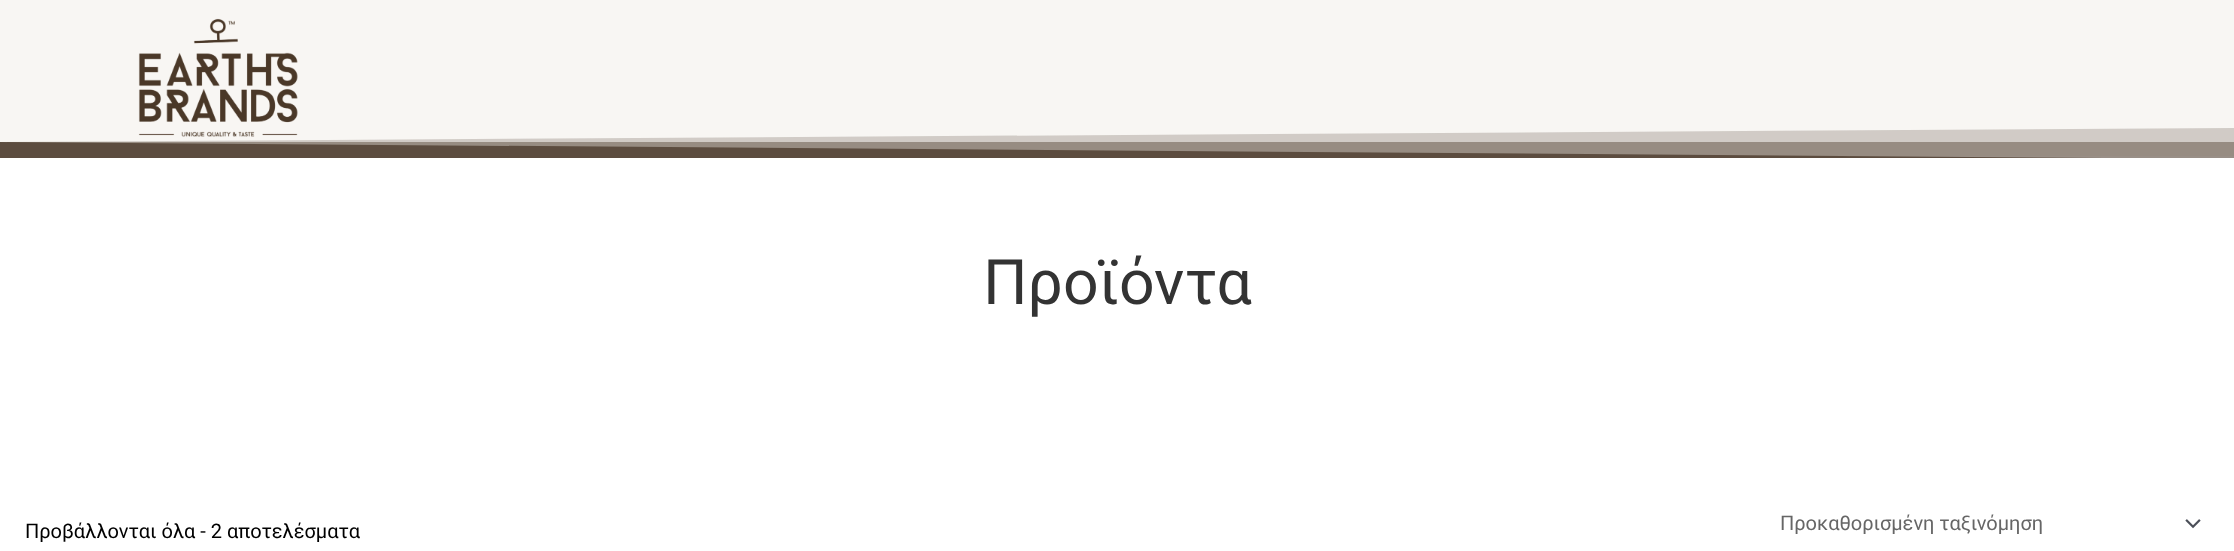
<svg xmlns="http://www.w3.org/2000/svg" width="2234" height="551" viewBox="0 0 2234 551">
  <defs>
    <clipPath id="clip1"><rect x="0" y="126" width="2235" height="32"/></clipPath>
  </defs>
  <rect width="100%" height="100%" fill="#ffffff"/>
  <rect x="1850" y="156" width="384" height="2" fill="#aea69f"/>
  <rect x="0" y="0" width="2234" height="142" fill="#f8f6f3"/>
  <rect x="7" y="142" width="2227" height="14" fill="#aba299"/>
  <g clip-path="url(#clip1)">
    <path d="M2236 159H-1V142Z" fill="#5d4d3f"/>
    <path d="M-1 159H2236V128L-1 142Z" fill="#5d4d3f" fill-opacity="0.25"/>
  </g>
  <image x="138" y="18" width="160" height="119" href="img1.png"/>
  <text x="983" y="304" font-family="Roboto" font-size="62.5" fill="#333333">Προϊόντα</text>
  <text x="25" y="538" font-family="Roboto" font-size="20" fill="#000000">Προβάλλονται όλα - 2 αποτελέσματα</text>
  <image x="2185" y="519" width="16" height="10" href="img2.png"/>
  <text x="1780" y="530" font-family="Roboto" font-size="20" fill="#666666">Προκαθορισμένη ταξινόμηση</text>
</svg>
